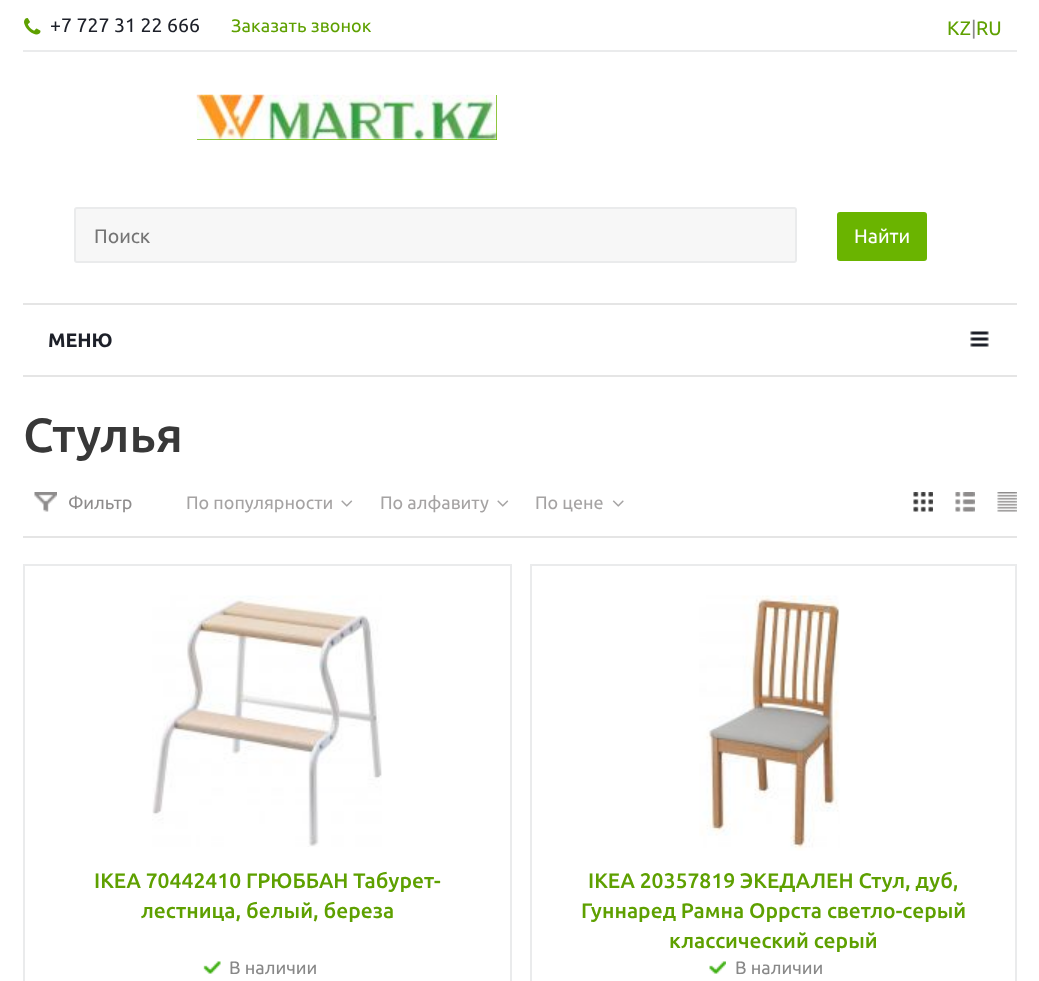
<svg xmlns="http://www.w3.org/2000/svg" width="1039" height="981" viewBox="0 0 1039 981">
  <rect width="100%" height="100%" fill="#ffffff"/>
  <image x="24" y="18" width="17" height="17" href="img1.png"/>
  <text x="50" y="32" font-family="Ubuntu" font-size="19.5" fill="#1d2029">+7 727 31 22 666</text>
  <text x="231" y="32" font-family="Ubuntu" font-size="18" letter-spacing="0.1" fill="#5ea000">Заказать звонок</text>
  <text x="947" y="35" font-family="Ubuntu" font-size="19.5" fill="#5ea000">KZ</text>
  <text x="971" y="35" font-family="Ubuntu" font-size="19.5" fill="#888888">|</text>
  <text x="976" y="35" font-family="Ubuntu" font-size="19.5" fill="#5ea000">RU</text>
  <rect x="23" y="50" width="994" height="2" fill="#eaebec"/>
  <rect x="197" y="95" width="300" height="45" fill="#6ab400"/>
  <image x="196" y="94" width="301" height="46" href="img2.png"/>
  <rect x="75" y="208" width="721" height="54" rx="2" fill="#f7f7f7" stroke="#eaebec" stroke-width="2"/>
  <text x="94" y="243" font-family="Ubuntu" font-size="19.5" fill="#757575">Поиск</text>
  <rect x="837" y="212" width="90" height="49" rx="3" fill="#6ab400"/>
  <text x="854" y="243" font-family="Ubuntu" font-size="19.5" fill="#ffffff">Найти</text>
  <rect x="23" y="303" width="994" height="2" fill="#e5e5e5"/>
  <rect x="23" y="375" width="994" height="2" fill="#e5e5e5"/>
  <text x="48" y="347" font-family="Ubuntu" font-size="19.5" font-weight="bold" fill="#1d2029">МЕНЮ</text>
  <image x="970" y="331" width="19" height="16" href="img3.png"/>
  <text x="23" y="452" font-family="Ubuntu" font-size="48" font-weight="500" fill="#383838">Стулья</text>
  <image x="34" y="492" width="23" height="20" href="img4.png"/>
  <text x="68" y="509" font-family="Ubuntu" font-size="18" fill="#8e8c8c">Фильтр</text>
  <rect x="23" y="536" width="994" height="2" fill="#e5e5e5"/>
  <text x="186" y="509" font-family="Ubuntu" font-size="18" fill="#a5a3a3">По популярности</text>
  <image x="341" y="500" width="12" height="7" href="img5.png"/>
  <text x="380" y="509" font-family="Ubuntu" font-size="18" fill="#a5a3a3">По алфавиту</text>
  <image x="497" y="500" width="12" height="7" href="img5.png"/>
  <text x="535" y="509" font-family="Ubuntu" font-size="18" fill="#a5a3a3">По цене</text>
  <image x="612" y="500" width="12" height="7" href="img6.png"/>
  <image x="913" y="492" width="20" height="20" href="img7.png"/>
  <image x="955" y="492" width="20" height="20" href="img8.png"/>
  <image x="997" y="492" width="20" height="20" href="img9.png"/>
  <rect x="24" y="565" width="487" height="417" fill="none" stroke="#eaebec" stroke-width="2"/>
  <image x="152" y="595" width="230" height="252" href="img10.png"/>
  <text x="94" y="888" font-family="Ubuntu" font-size="21" font-weight="500" fill="#5ea000">IKEA 70442410 ГРЮББАН Табурет-</text>
  <text x="141" y="918" font-family="Ubuntu" font-size="21" font-weight="500" fill="#5ea000">лестница, белый, береза</text>
  <image x="203" y="961" width="18" height="13" href="img11.png"/>
  <text x="229" y="974" font-family="Ubuntu" font-size="18" fill="#888888">В наличии</text>
  <rect x="531" y="565" width="485" height="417" fill="none" stroke="#eaebec" stroke-width="2"/>
  <image x="699" y="595" width="141" height="256" href="img12.png"/>
  <text x="588" y="888" font-family="Ubuntu" font-size="21" font-weight="500" fill="#5ea000">IKEA 20357819 ЭКЕДАЛЕН Стул, дуб,</text>
  <text x="581" y="918" font-family="Ubuntu" font-size="21" font-weight="500" fill="#5ea000">Гуннаред Рамна Оррста светло-серый</text>
  <text x="669" y="948" font-family="Ubuntu" font-size="21" font-weight="500" fill="#5ea000">классический серый</text>
  <image x="709" y="961" width="17" height="13" href="img13.png"/>
  <text x="735" y="974" font-family="Ubuntu" font-size="18" fill="#888888">В наличии</text>
</svg>
